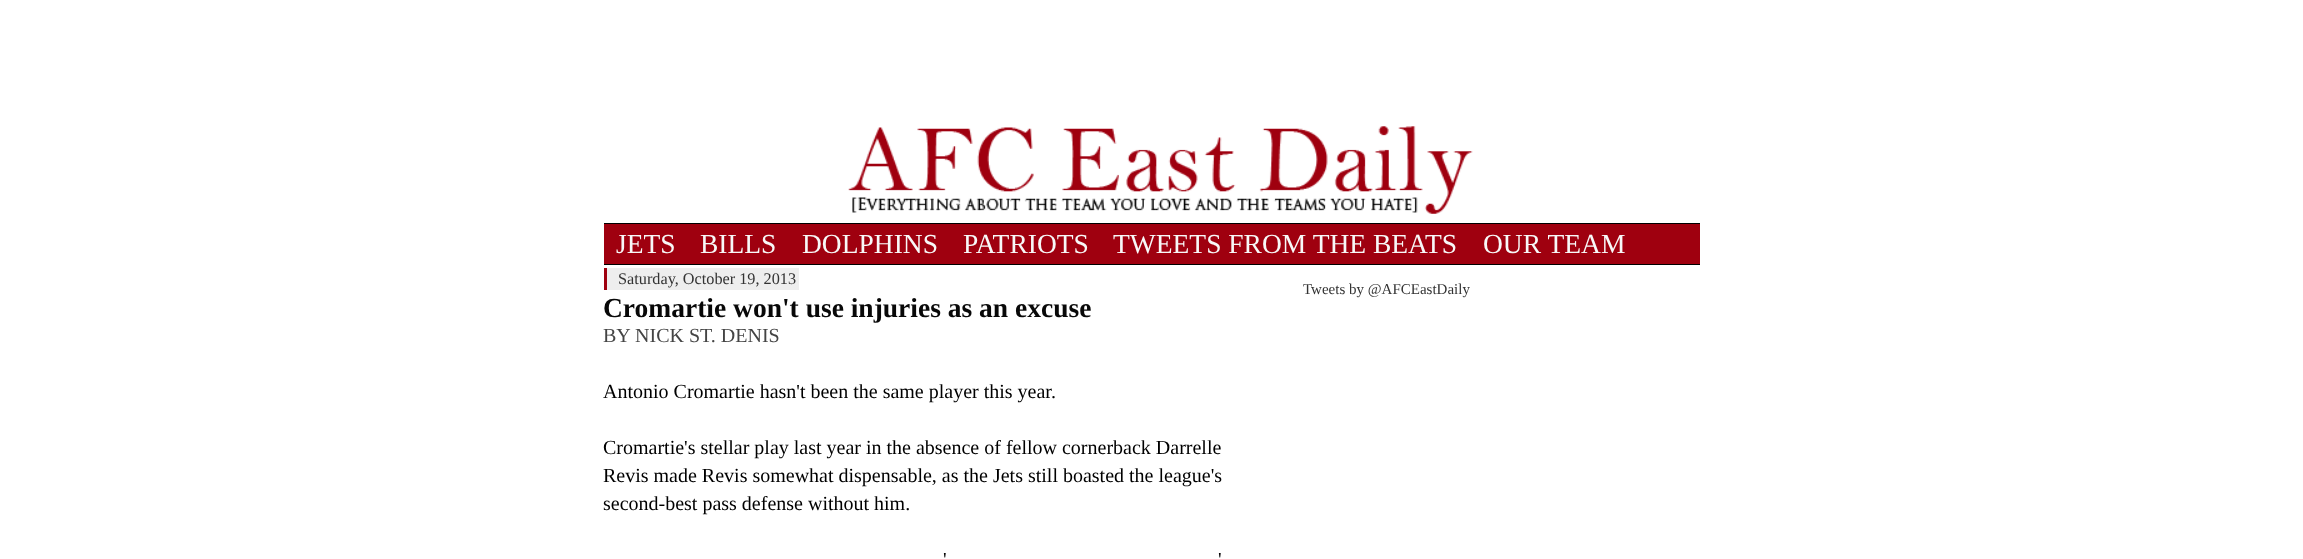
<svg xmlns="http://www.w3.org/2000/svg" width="2303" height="559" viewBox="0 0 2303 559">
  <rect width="100%" height="100%" fill="#ffffff"/>
  <image x="848" y="126" width="625" height="88" href="img1.png"/>
  <rect x="604" y="224" width="1096" height="40" fill="#9f000f"/>
  <rect x="604" y="223" width="1096" height="1" fill="#000000"/>
  <rect x="604" y="264" width="1096" height="1" fill="#000000"/>
  <text x="616" y="253" font-family="Liberation Serif" font-size="27.5" fill="#f8f8f8">JETS</text>
  <text x="700" y="253" font-family="Liberation Serif" font-size="27.5" fill="#f8f8f8">BILLS</text>
  <text x="802" y="253" font-family="Liberation Serif" font-size="27.5" fill="#f8f8f8">DOLPHINS</text>
  <text x="963" y="253" font-family="Liberation Serif" font-size="27.5" fill="#f8f8f8">PATRIOTS</text>
  <text x="1113" y="253" font-family="Liberation Serif" font-size="27.5" fill="#f8f8f8">TWEETS FROM THE BEATS</text>
  <text x="1483" y="253" font-family="Liberation Serif" font-size="27.5" fill="#f8f8f8">OUR TEAM</text>
  <rect x="607" y="268" width="192" height="22" fill="#eeeeee"/>
  <text x="618" y="284" font-family="Liberation Serif" font-size="16.25" fill="#333333">Saturday, October 19, 2013</text>
  <rect x="604" y="268" width="3" height="22" fill="#9f000f"/>
  <text x="603" y="317" font-family="Liberation Serif" font-size="27.5" font-weight="bold" fill="#080808">Cromartie won't use injuries as an excuse</text>
  <text x="603" y="342" font-family="Liberation Serif" font-size="20" fill="#444444">BY NICK ST. DENIS</text>
  <text x="603" y="398" font-family="Liberation Serif" font-size="20" fill="#000000">Antonio Cromartie hasn't been the same player this year.</text>
  <text x="603" y="454" font-family="Liberation Serif" font-size="20" fill="#000000">Cromartie's stellar play last year in the absence of fellow cornerback Darrelle</text>
  <text x="603" y="482" font-family="Liberation Serif" font-size="20" fill="#000000">Revis made Revis somewhat dispensable, as the Jets still boasted the league's</text>
  <text x="603" y="510" font-family="Liberation Serif" font-size="20" fill="#000000">second-best pass defense without him.</text>
  <text x="943" y="566" font-family="Liberation Serif" font-size="20" fill="#000000">'</text>
  <text x="1218" y="566" font-family="Liberation Serif" font-size="20" fill="#000000">'</text>
  <text x="1303" y="294" font-family="Liberation Serif" font-size="15" fill="#333333">Tweets by @AFCEastDaily</text>
</svg>
